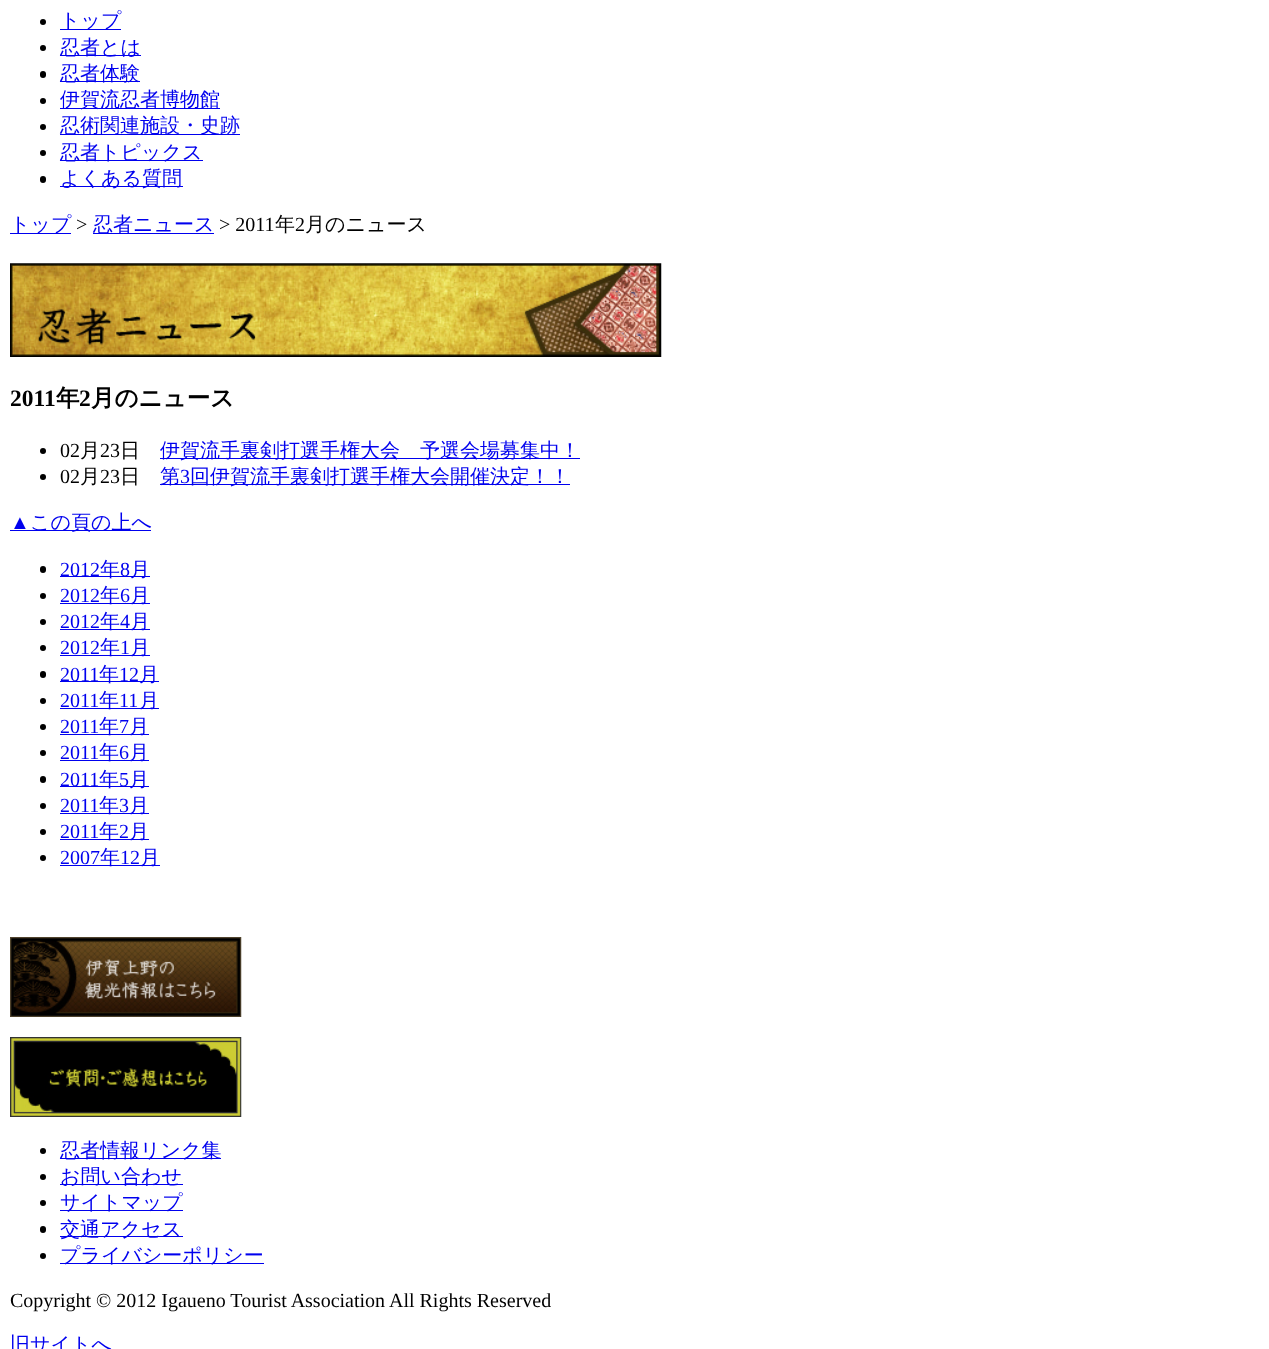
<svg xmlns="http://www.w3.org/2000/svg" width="1269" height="1349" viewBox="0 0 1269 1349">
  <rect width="100%" height="100%" fill="#ffffff"/>
  <circle cx="43" cy="22" r="3" fill="#000000"/>
  <rect x="60" y="29" width="61" height="1" fill="#0000ee"/>
  <text x="60" y="27" font-family="WenQuanYi Zen Hei" font-size="20" font-weight="500" fill="#0000ee">トップ</text>
  <circle cx="43" cy="48" r="3" fill="#000000"/>
  <rect x="60" y="55" width="81" height="1" fill="#0000ee"/>
  <text x="60" y="54" font-family="WenQuanYi Zen Hei" font-size="20" font-weight="500" fill="#0000ee">忍者とは</text>
  <rect x="40" y="71" width="6" height="7" rx="3" fill="#000000"/>
  <rect x="60" y="81" width="80" height="1" fill="#0000ee"/>
  <text x="60" y="80" font-family="WenQuanYi Zen Hei" font-size="20" font-weight="500" fill="#0000ee">忍者体験</text>
  <circle cx="43" cy="101" r="3" fill="#000000"/>
  <rect x="60" y="108" width="160" height="1" fill="#0000ee"/>
  <text x="60" y="106" font-family="WenQuanYi Zen Hei" font-size="20" font-weight="500" fill="#0000ee">伊賀流忍者博物館</text>
  <circle cx="43" cy="127" r="3" fill="#000000"/>
  <rect x="60" y="134" width="180" height="1" fill="#0000ee"/>
  <text x="60" y="132" font-family="WenQuanYi Zen Hei" font-size="20" font-weight="500" fill="#0000ee">忍術関連施設・史跡</text>
  <circle cx="43" cy="153" r="3" fill="#000000"/>
  <rect x="60" y="160" width="143" height="1" fill="#0000ee"/>
  <text x="60" y="159" font-family="WenQuanYi Zen Hei" font-size="20" font-weight="500" fill="#0000ee">忍者トピックス</text>
  <rect x="40" y="176" width="6" height="7" rx="3" fill="#000000"/>
  <rect x="60" y="186" width="123" height="1" fill="#0000ee"/>
  <text x="60" y="185" font-family="WenQuanYi Zen Hei" font-size="20" font-weight="500" fill="#0000ee">よくある質問</text>
  <rect x="10" y="233" width="61" height="1" fill="#0000ee"/>
  <text x="10" y="231" font-family="WenQuanYi Zen Hei" font-size="20" font-weight="500" fill="#0000ee">トップ</text>
  <text x="76" y="231" font-family="Liberation Serif" font-size="20" fill="#000000">&gt;</text>
  <rect x="93" y="233" width="121" height="1" fill="#0000ee"/>
  <text x="93" y="231" font-family="WenQuanYi Zen Hei" font-size="20" font-weight="500" fill="#0000ee">忍者ニュース</text>
  <text x="219" y="231" font-family="Liberation Serif" font-size="20" fill="#000000">&gt; 2011</text>
  <text x="275" y="231" font-family="WenQuanYi Zen Hei" font-size="20" font-weight="500" fill="#000000">年</text>
  <text x="295" y="231" font-family="Liberation Serif" font-size="20" fill="#000000">2</text>
  <text x="305" y="231" font-family="WenQuanYi Zen Hei" font-size="20" font-weight="500" fill="#000000">月のニュース</text>
  <image x="10" y="263" width="652" height="94" href="img1.png"/>
  <text x="10" y="406" font-family="Liberation Serif" font-size="23.5" font-weight="bold" fill="#000000">2011</text>
  <text x="56" y="406" font-family="WenQuanYi Zen Hei" font-size="23.5" font-weight="bold" fill="#000000">年</text>
  <text x="79" y="406" font-family="Liberation Serif" font-size="23.5" font-weight="bold" fill="#000000">2</text>
  <text x="91" y="406" font-family="WenQuanYi Zen Hei" font-size="23.5" font-weight="bold" fill="#000000">月のニュース</text>
  <circle cx="43" cy="451" r="3" fill="#000000"/>
  <text x="60" y="457" font-family="Liberation Serif" font-size="20" fill="#000000">02</text>
  <text x="80" y="457" font-family="WenQuanYi Zen Hei" font-size="20" font-weight="500" fill="#000000">月</text>
  <text x="100" y="457" font-family="Liberation Serif" font-size="20" fill="#000000">23</text>
  <text x="120" y="457" font-family="WenQuanYi Zen Hei" font-size="20" font-weight="500" fill="#000000">日</text>
  <rect x="160" y="458" width="420" height="1" fill="#0000ee"/>
  <text x="160" y="457" font-family="WenQuanYi Zen Hei" font-size="20" font-weight="500" fill="#0000ee">伊賀流手裏剣打選手権大会　予選会場募集中！</text>
  <circle cx="43" cy="477" r="3" fill="#000000"/>
  <text x="60" y="483" font-family="Liberation Serif" font-size="20" fill="#000000">02</text>
  <text x="80" y="483" font-family="WenQuanYi Zen Hei" font-size="20" font-weight="500" fill="#000000">月</text>
  <text x="100" y="483" font-family="Liberation Serif" font-size="20" fill="#000000">23</text>
  <text x="120" y="483" font-family="WenQuanYi Zen Hei" font-size="20" font-weight="500" fill="#000000">日</text>
  <rect x="160" y="484" width="410" height="1" fill="#0000ee"/>
  <text x="160" y="483" font-family="WenQuanYi Zen Hei" font-size="20" font-weight="500" fill="#0000ee">第</text>
  <text x="180" y="483" font-family="Liberation Serif" font-size="20" fill="#0000ee">3</text>
  <text x="190" y="483" font-family="WenQuanYi Zen Hei" font-size="20" font-weight="500" fill="#0000ee">回伊賀流手裏剣打選手権大会開催決定！！</text>
  <text x="10" y="529" font-family="Liberation Serif" font-size="20" fill="#0000ee">▲</text>
  <rect x="10" y="530" width="141" height="1" fill="#0000ee"/>
  <text x="30" y="529" font-family="WenQuanYi Zen Hei" font-size="20" font-weight="500" fill="#0000ee">この頁の上へ</text>
  <rect x="40" y="566" width="6" height="7" rx="3" fill="#000000"/>
  <rect x="60" y="576" width="90" height="1" fill="#0000ee"/>
  <text x="60" y="576" font-family="Liberation Serif" font-size="20" fill="#0000ee">2012</text>
  <text x="100" y="576" font-family="WenQuanYi Zen Hei" font-size="20" font-weight="500" fill="#0000ee">年</text>
  <text x="120" y="576" font-family="Liberation Serif" font-size="20" fill="#0000ee">8</text>
  <text x="130" y="576" font-family="WenQuanYi Zen Hei" font-size="20" font-weight="500" fill="#0000ee">月</text>
  <circle cx="43" cy="596" r="3" fill="#000000"/>
  <text x="60" y="602" font-family="Liberation Serif" font-size="20" fill="#0000ee">2012</text>
  <rect x="60" y="603" width="90" height="1" fill="#0000ee"/>
  <text x="100" y="602" font-family="WenQuanYi Zen Hei" font-size="20" font-weight="500" fill="#0000ee">年</text>
  <text x="120" y="602" font-family="Liberation Serif" font-size="20" fill="#0000ee">6</text>
  <text x="130" y="602" font-family="WenQuanYi Zen Hei" font-size="20" font-weight="500" fill="#0000ee">月</text>
  <circle cx="43" cy="622" r="3" fill="#000000"/>
  <text x="60" y="628" font-family="Liberation Serif" font-size="20" fill="#0000ee">2012</text>
  <rect x="60" y="629" width="90" height="1" fill="#0000ee"/>
  <text x="100" y="628" font-family="WenQuanYi Zen Hei" font-size="20" font-weight="500" fill="#0000ee">年</text>
  <text x="120" y="628" font-family="Liberation Serif" font-size="20" fill="#0000ee">4</text>
  <text x="130" y="628" font-family="WenQuanYi Zen Hei" font-size="20" font-weight="500" fill="#0000ee">月</text>
  <circle cx="43" cy="648" r="3" fill="#000000"/>
  <text x="60" y="654" font-family="Liberation Serif" font-size="20" fill="#0000ee">2012</text>
  <rect x="60" y="655" width="90" height="1" fill="#0000ee"/>
  <text x="100" y="654" font-family="WenQuanYi Zen Hei" font-size="20" font-weight="500" fill="#0000ee">年</text>
  <text x="120" y="654" font-family="Liberation Serif" font-size="20" fill="#0000ee">1</text>
  <text x="130" y="654" font-family="WenQuanYi Zen Hei" font-size="20" font-weight="500" fill="#0000ee">月</text>
  <rect x="40" y="671" width="6" height="7" rx="3" fill="#000000"/>
  <rect x="60" y="681" width="99" height="1" fill="#0000ee"/>
  <text x="60" y="681" font-family="Liberation Serif" font-size="20" fill="#0000ee">2011</text>
  <text x="99" y="681" font-family="WenQuanYi Zen Hei" font-size="20" font-weight="500" fill="#0000ee">年</text>
  <text x="119" y="681" font-family="Liberation Serif" font-size="20" fill="#0000ee">12</text>
  <text x="139" y="681" font-family="WenQuanYi Zen Hei" font-size="20" font-weight="500" fill="#0000ee">月</text>
  <circle cx="43" cy="701" r="3" fill="#000000"/>
  <text x="60" y="707" font-family="Liberation Serif" font-size="20" fill="#0000ee">2011</text>
  <rect x="60" y="708" width="99" height="1" fill="#0000ee"/>
  <text x="99" y="707" font-family="WenQuanYi Zen Hei" font-size="20" font-weight="500" fill="#0000ee">年</text>
  <text x="119" y="707" font-family="Liberation Serif" font-size="20" fill="#0000ee">11</text>
  <text x="139" y="707" font-family="WenQuanYi Zen Hei" font-size="20" font-weight="500" fill="#0000ee">月</text>
  <circle cx="43" cy="727" r="3" fill="#000000"/>
  <text x="60" y="733" font-family="Liberation Serif" font-size="20" fill="#0000ee">2011</text>
  <rect x="60" y="734" width="89" height="1" fill="#0000ee"/>
  <text x="99" y="733" font-family="WenQuanYi Zen Hei" font-size="20" font-weight="500" fill="#0000ee">年</text>
  <text x="119" y="733" font-family="Liberation Serif" font-size="20" fill="#0000ee">7</text>
  <text x="129" y="733" font-family="WenQuanYi Zen Hei" font-size="20" font-weight="500" fill="#0000ee">月</text>
  <circle cx="43" cy="753" r="3" fill="#000000"/>
  <text x="60" y="759" font-family="Liberation Serif" font-size="20" fill="#0000ee">2011</text>
  <rect x="60" y="760" width="89" height="1" fill="#0000ee"/>
  <text x="99" y="759" font-family="WenQuanYi Zen Hei" font-size="20" font-weight="500" fill="#0000ee">年</text>
  <text x="119" y="759" font-family="Liberation Serif" font-size="20" fill="#0000ee">6</text>
  <text x="129" y="759" font-family="WenQuanYi Zen Hei" font-size="20" font-weight="500" fill="#0000ee">月</text>
  <rect x="40" y="776" width="6" height="7" rx="3" fill="#000000"/>
  <rect x="60" y="786" width="89" height="1" fill="#0000ee"/>
  <text x="60" y="786" font-family="Liberation Serif" font-size="20" fill="#0000ee">2011</text>
  <text x="99" y="786" font-family="WenQuanYi Zen Hei" font-size="20" font-weight="500" fill="#0000ee">年</text>
  <text x="119" y="786" font-family="Liberation Serif" font-size="20" fill="#0000ee">5</text>
  <text x="129" y="786" font-family="WenQuanYi Zen Hei" font-size="20" font-weight="500" fill="#0000ee">月</text>
  <circle cx="43" cy="806" r="3" fill="#000000"/>
  <text x="60" y="812" font-family="Liberation Serif" font-size="20" fill="#0000ee">2011</text>
  <rect x="60" y="813" width="89" height="1" fill="#0000ee"/>
  <text x="99" y="812" font-family="WenQuanYi Zen Hei" font-size="20" font-weight="500" fill="#0000ee">年</text>
  <text x="119" y="812" font-family="Liberation Serif" font-size="20" fill="#0000ee">3</text>
  <text x="129" y="812" font-family="WenQuanYi Zen Hei" font-size="20" font-weight="500" fill="#0000ee">月</text>
  <circle cx="43" cy="832" r="3" fill="#000000"/>
  <text x="60" y="838" font-family="Liberation Serif" font-size="20" fill="#0000ee">2011</text>
  <rect x="60" y="839" width="89" height="1" fill="#0000ee"/>
  <text x="99" y="838" font-family="WenQuanYi Zen Hei" font-size="20" font-weight="500" fill="#0000ee">年</text>
  <text x="119" y="838" font-family="Liberation Serif" font-size="20" fill="#0000ee">2</text>
  <text x="129" y="838" font-family="WenQuanYi Zen Hei" font-size="20" font-weight="500" fill="#0000ee">月</text>
  <circle cx="43" cy="858" r="3" fill="#000000"/>
  <text x="60" y="864" font-family="Liberation Serif" font-size="20" fill="#0000ee">2007</text>
  <rect x="60" y="865" width="100" height="1" fill="#0000ee"/>
  <text x="100" y="864" font-family="WenQuanYi Zen Hei" font-size="20" font-weight="500" fill="#0000ee">年</text>
  <text x="120" y="864" font-family="Liberation Serif" font-size="20" fill="#0000ee">12</text>
  <text x="140" y="864" font-family="WenQuanYi Zen Hei" font-size="20" font-weight="500" fill="#0000ee">月</text>
  <image x="10" y="937" width="232" height="80" href="img2.png"/>
  <image x="10" y="1037" width="232" height="80" href="img3.png"/>
  <circle cx="43" cy="1151" r="3" fill="#000000"/>
  <rect x="60" y="1158" width="161" height="1" fill="#0000ee"/>
  <text x="60" y="1157" font-family="WenQuanYi Zen Hei" font-size="20" font-weight="500" fill="#0000ee">忍者情報リンク集</text>
  <circle cx="43" cy="1177" r="3" fill="#000000"/>
  <rect x="60" y="1184" width="123" height="1" fill="#0000ee"/>
  <text x="60" y="1183" font-family="WenQuanYi Zen Hei" font-size="20" font-weight="500" fill="#0000ee">お問い合わせ</text>
  <circle cx="43" cy="1203" r="3" fill="#000000"/>
  <rect x="60" y="1210" width="123" height="1" fill="#0000ee"/>
  <text x="60" y="1209" font-family="WenQuanYi Zen Hei" font-size="20" font-weight="500" fill="#0000ee">サイトマップ</text>
  <rect x="40" y="1226" width="6" height="7" rx="3" fill="#000000"/>
  <rect x="60" y="1236" width="123" height="1" fill="#0000ee"/>
  <text x="60" y="1236" font-family="WenQuanYi Zen Hei" font-size="20" font-weight="500" fill="#0000ee">交通アクセス</text>
  <circle cx="43" cy="1256" r="3" fill="#000000"/>
  <rect x="60" y="1263" width="204" height="1" fill="#0000ee"/>
  <text x="60" y="1262" font-family="WenQuanYi Zen Hei" font-size="20" font-weight="500" fill="#0000ee">プライバシーポリシー</text>
  <text x="10" y="1307" font-family="Liberation Serif" font-size="20" fill="#000000">Copyright © 2012 Igaueno Tourist Association All Rights Reserved</text>
  <text x="10" y="1351" font-family="WenQuanYi Zen Hei" font-size="20" font-weight="500" fill="#0000ee">旧サイトへ</text>
</svg>
